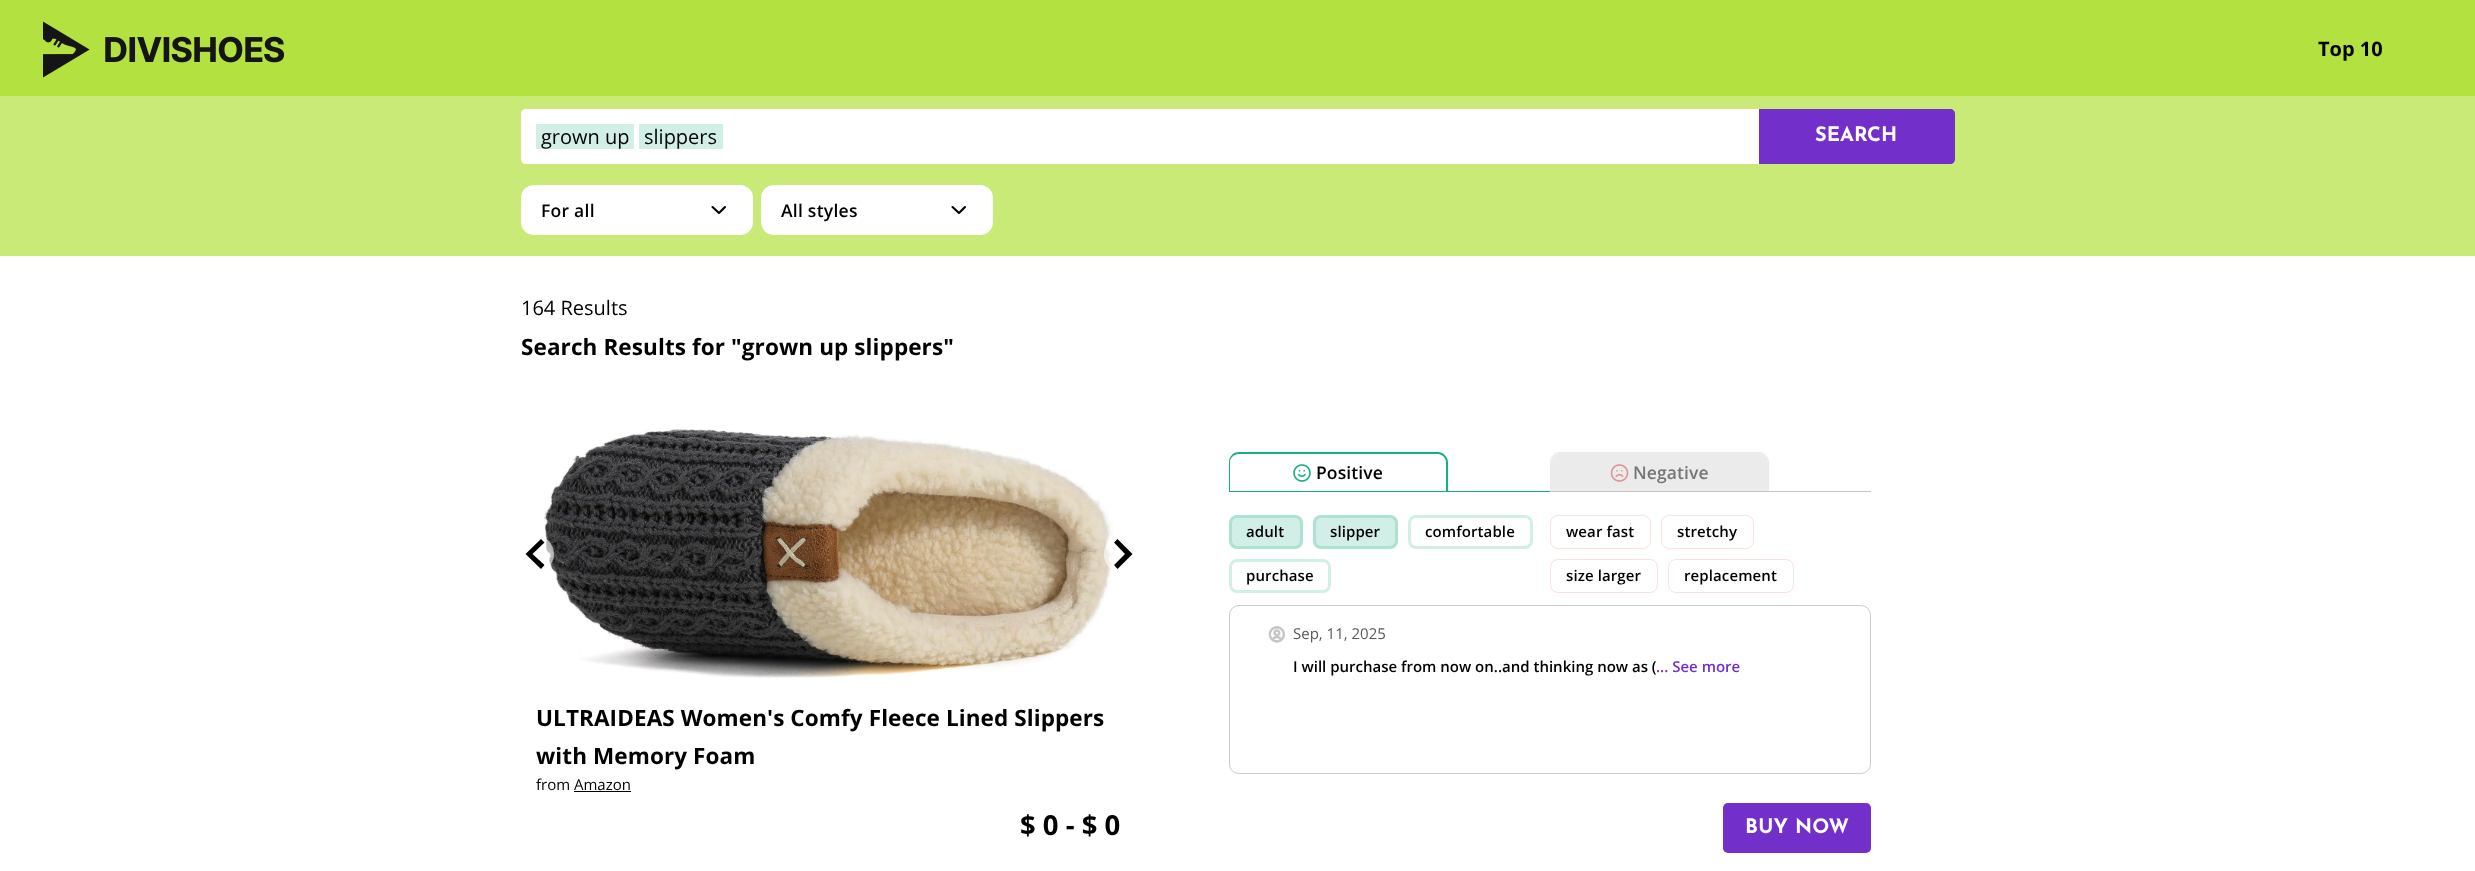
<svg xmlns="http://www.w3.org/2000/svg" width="2475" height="871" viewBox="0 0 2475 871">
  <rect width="100%" height="100%" fill="#ffffff"/>
  <rect x="0" y="0" width="2475" height="96" fill="#b3e140"/>
  <image x="43" y="21" width="242" height="57" href="img1.png"/>
  <text x="2318" y="56" font-family="Open Sans" font-size="20" font-weight="bold" fill="#000000">Top 10</text>
  <rect x="0" y="96" width="2475" height="160" fill="#c9ea77"/>
  <path d="M526 109H1759V164H526C523 164 521 162 521 159V114C521 111 523 109 526 109Z" fill="#ffffff"/>
  <rect x="536" y="124" width="98" height="25" fill="#d1efe6"/>
  <text x="541" y="144" font-family="Open Sans" font-size="20" fill="#000000">grown up</text>
  <rect x="639" y="124" width="84" height="25" fill="#d1efe6"/>
  <text x="644" y="144" font-family="Open Sans" font-size="20" fill="#000000">slippers</text>
  <path d="M1759 109H1950C1953 109 1955 111 1955 114V159C1955 162 1953 164 1950 164H1759Z" fill="#732fca"/>
  <text x="1815" y="141" font-family="Josefin Sans" font-size="20" font-weight="bold" fill="#ffffff">SEARCH</text>
  <rect x="521" y="185" width="232" height="50" rx="13" fill="#ffffff"/>
  <text x="541" y="217" font-family="Open Sans" font-size="17.5" font-weight="600" letter-spacing="0.25" fill="#000000">For all</text>
  <path d="M712.5 207L719 213L725 207" fill="none" stroke="#000000" stroke-width="2.1" stroke-linecap="round" stroke-linejoin="round"/>
  <rect x="761" y="185" width="232" height="50" rx="13" fill="#ffffff"/>
  <text x="781" y="217" font-family="Open Sans" font-size="17.5" font-weight="600" letter-spacing="0.25" fill="#000000">All styles</text>
  <path d="M952.5 207L959 213L965 207" fill="none" stroke="#000000" stroke-width="2.1" stroke-linecap="round" stroke-linejoin="round"/>
  <text x="521" y="315" font-family="Open Sans" font-size="20" fill="#000000">164 Results</text>
  <text x="521" y="355" font-family="Open Sans" font-size="22.5" font-weight="bold" letter-spacing="0.1" fill="#000000">Search Results for "grown up slippers"</text>
  <image x="543" y="429" width="570" height="249" href="img2.png"/>
  <circle cx="535" cy="554" r="19" fill="#ffffff" fill-opacity="0.6"/>
  <path d="M541 539L544.5 542.5L532.5 554L544.5 565L541 569L525.5 554Z" fill="#000000"/>
  <rect x="1104" y="535" width="37" height="38" rx="18.5" fill="#ffffff" fill-opacity="0.6"/>
  <path d="M1114 542.5L1117.5 539L1132.5 554L1117.5 569L1114 565L1125 554Z" fill="#000000"/>
  <text x="536" y="726" font-family="Open Sans" font-size="22.5" font-weight="bold" letter-spacing="0.1" fill="#000000">ULTRAIDEAS Women's Comfy Fleece Lined Slippers</text>
  <text x="536" y="764" font-family="Open Sans" font-size="22.5" font-weight="bold" letter-spacing="0.1" fill="#000000">with Memory Foam</text>
  <text x="536" y="790" font-family="Open Sans" font-size="15" fill="#000000">from Amazon</text>
  <rect x="574" y="791" width="57" height="1" fill="#000000"/>
  <text x="1020" y="835" font-family="Open Sans" font-size="27.5" font-weight="bold" fill="#000000">$ 0 - $ 0</text>
  <rect x="1229" y="491" width="321" height="1" fill="#17af82"/>
  <path d="M1239 452H1438C1443 452 1448 457 1448 462V491H1229V462C1229 457 1233 452 1239 452ZM1239 454H1438C1442 454 1446 458 1446 462V491H1230V462C1230 458 1234 454 1239 454Z" fill="#17af82" fill-rule="evenodd"/>
  <image x="1293" y="464" width="18" height="18" href="img3.png"/>
  <text x="1316" y="479" font-family="Open Sans" font-size="17.5" font-weight="600" letter-spacing="0.1" fill="#000000">Positive</text>
  <rect x="1550" y="491" width="321" height="1" fill="#c4c4c4"/>
  <path d="M1560 454H1759C1764 454 1768 458 1768 463V491H1551V463C1551 458 1555 454 1560 454Z" fill="#ebebeb"/>
  <path d="M1560 452H1759C1764 452 1769 457 1769 462V491H1550V462C1550 457 1554 452 1560 452ZM1560 454H1759C1764 454 1768 458 1768 462V491H1551V462C1551 458 1555 454 1560 454Z" fill="#ebebeb" fill-rule="evenodd"/>
  <image x="1610" y="464" width="19" height="18" href="img4.png"/>
  <text x="1633" y="479" font-family="Open Sans" font-size="17.5" font-weight="600" letter-spacing="0.1" fill="#767676">Negative</text>
  <rect x="1229" y="515" width="74" height="34" rx="8" fill="#d1efe6"/>
  <rect x="1230.5" y="516.5" width="71" height="31" rx="6.5" fill="none" stroke="#17af82" stroke-opacity="0.2" stroke-width="3"/>
  <text x="1246" y="537" font-family="Open Sans" font-size="15" font-weight="600" letter-spacing="0.1" fill="#000000">adult</text>
  <rect x="1313" y="515" width="85" height="34" rx="8" fill="#d1efe6"/>
  <rect x="1314.5" y="516.5" width="82" height="31" rx="6.5" fill="none" stroke="#17af82" stroke-opacity="0.2" stroke-width="3"/>
  <text x="1330" y="537" font-family="Open Sans" font-size="15" font-weight="600" letter-spacing="0.1" fill="#000000">slipper</text>
  <rect x="1409.5" y="516.5" width="122" height="31" rx="6.5" fill="none" stroke="#d1efe6" stroke-width="3"/>
  <text x="1425" y="537" font-family="Open Sans" font-size="15" font-weight="600" letter-spacing="0.1" fill="#000000">comfortable</text>
  <rect x="1230.5" y="560.5" width="99" height="31" rx="6.5" fill="none" stroke="#d1efe6" stroke-width="3"/>
  <text x="1246" y="581" font-family="Open Sans" font-size="15" font-weight="600" letter-spacing="0.1" fill="#000000">purchase</text>
  <rect x="1550.5" y="515.5" width="100" height="33" rx="7.5" fill="none" stroke="#fcdfdf"/>
  <text x="1566" y="537" font-family="Open Sans" font-size="15" font-weight="600" letter-spacing="0.1" fill="#000000">wear fast</text>
  <rect x="1661.5" y="515.5" width="92" height="33" rx="7.5" fill="none" stroke="#fcdfdf"/>
  <text x="1677" y="537" font-family="Open Sans" font-size="15" font-weight="600" letter-spacing="0.1" fill="#000000">stretchy</text>
  <rect x="1550.5" y="559.5" width="107" height="33" rx="7.5" fill="none" stroke="#fcdfdf"/>
  <text x="1566" y="581" font-family="Open Sans" font-size="15" font-weight="600" letter-spacing="0.1" fill="#000000">size larger</text>
  <rect x="1668.5" y="559.5" width="125" height="33" rx="7.5" fill="none" stroke="#fcdfdf"/>
  <text x="1684" y="581" font-family="Open Sans" font-size="15" font-weight="600" letter-spacing="0.1" fill="#000000">replacement</text>
  <rect x="1229.5" y="605.5" width="641" height="168" rx="9.5" fill="none" stroke="#cccccc"/>
  <image x="1268" y="626" width="17" height="17" href="img5.png"/>
  <text x="1293" y="639" font-family="Open Sans" font-size="15" fill="#595959">Sep, 11, 2025</text>
  <text x="1293" y="672" font-family="Open Sans" font-size="15" font-weight="600" fill="#000000">I will purchase from now on..and thinking now as (</text>
  <text x="1656" y="672" font-family="Open Sans" font-size="15" font-weight="600" fill="#732fca">... See more</text>
  <rect x="1723" y="803" width="148" height="50" rx="5" fill="#732fca"/>
  <text x="1745" y="833" font-family="Josefin Sans" font-size="20" font-weight="bold" letter-spacing="0.25" fill="#ffffff">BUY NOW</text>
</svg>
